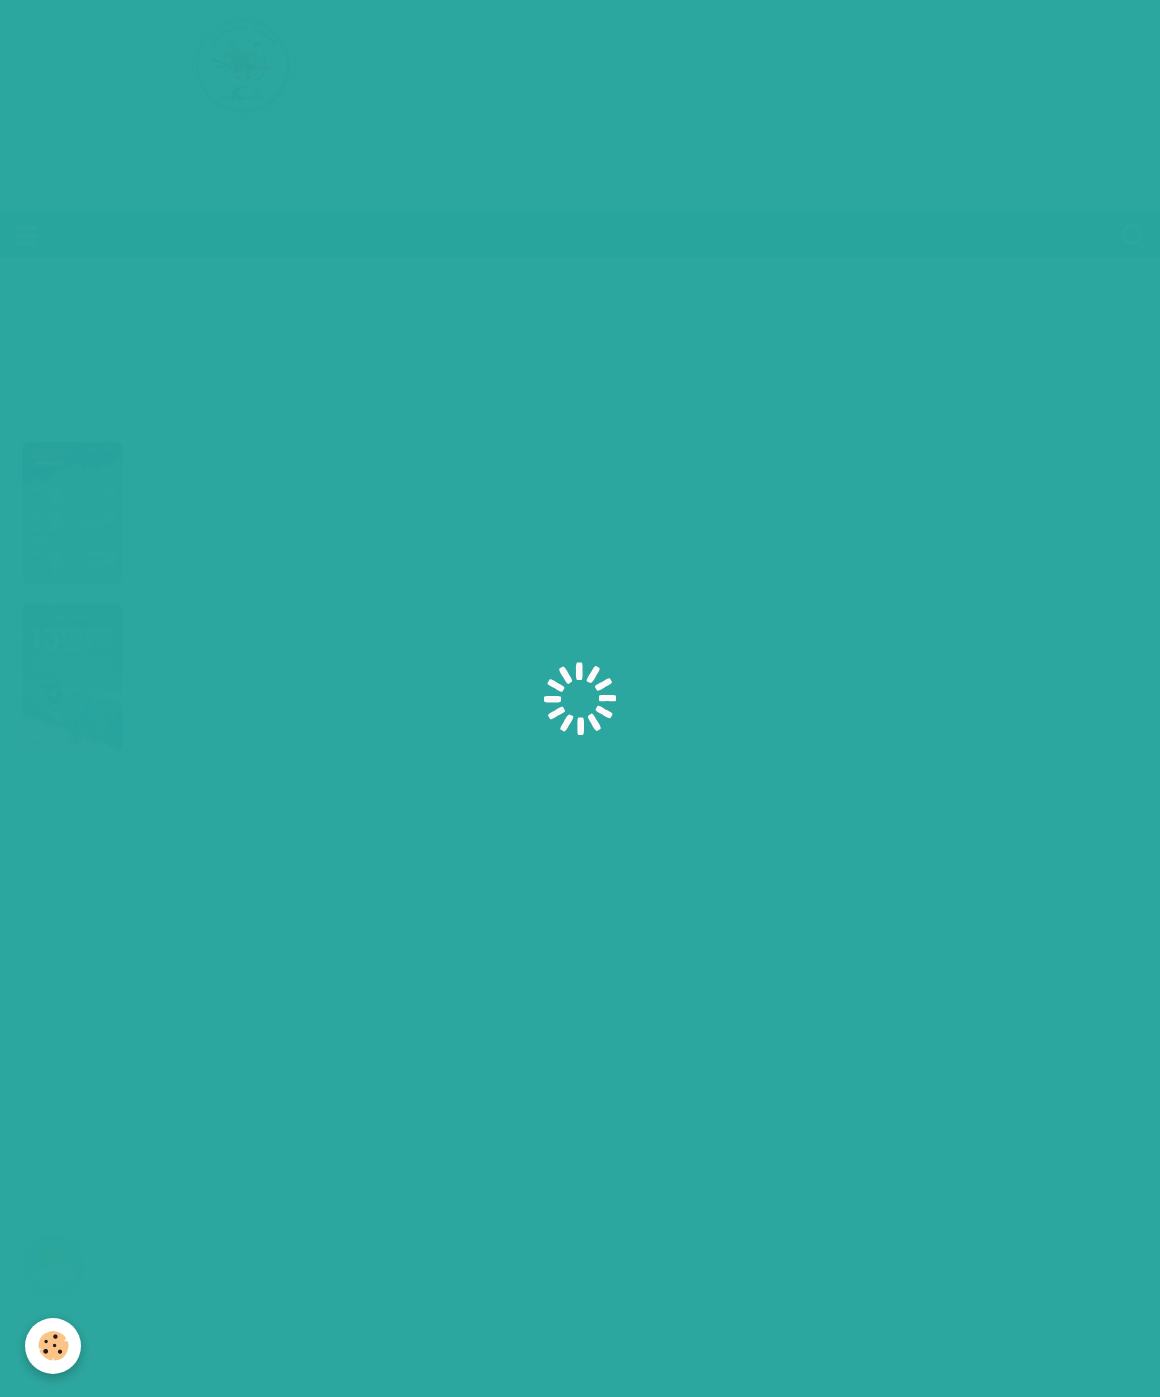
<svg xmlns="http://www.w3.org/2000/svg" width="1160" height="1397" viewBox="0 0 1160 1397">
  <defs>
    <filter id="blur1" x="-50%" y="-200%" width="200%" height="500%"><feGaussianBlur stdDeviation="6"/></filter>
  </defs>
  <rect width="100%" height="100%" fill="#2ca79f"/>
  <image x="192" y="14" width="105" height="105" href="img1.png"/>
  <rect x="0" y="213" width="1160" height="45" fill="#28a59d"/>
  <image x="13" y="225" width="24" height="20" href="img2.png"/>
  <image x="1121" y="224" width="25" height="25" href="img3.png"/>
  <image x="22" y="442" width="101" height="143" href="img4.png"/>
  <rect x="131" y="468" width="417" height="1" fill="#28a59d"/>
  <image x="22" y="603" width="101" height="149" href="img5.png"/>
  <rect x="131" y="629" width="369" height="1" fill="#28a59d"/>
  <image x="22" y="1234" width="63" height="63" href="img6.png"/>
  <path d="M577.5 662.5H581.5C583 663.5 582.5 670 582.5 671C582.5 672.5 583 679 581.5 680H577.5C575.5 680 576 672 576 671C576 670.5 575.5 662.5 577.5 662.5ZM596 666L599.5 668C600.5 669.5 596.5 675 596 676C595.5 677.5 592.5 683 590.5 683L587 681.5C585.5 680.5 590 673.5 590.5 673C591 672.5 594.5 665 596 666Z" fill="#fcfafa"/>
  <path d="M610 678.5L612 682C612 684 606 686.5 605 687C604 688 598.5 691.5 597 690.5L595 687C594 685.5 601.5 682 602 682C602.5 681.5 609.5 677 610 678.5ZM616 696V700.5C615.5 702 609 701 607.5 701C606 701 599.5 702 599 700.5V696C599 694.5 607 695 607.5 695C608 695 616 694.5 616 696ZM612.5 714.5L610.5 718C609 719 603.5 715.5 602.5 714.5C601.5 714 595.5 711.5 595.5 709.5L597.5 706C598.5 704.5 605 709 605.5 709.5C606 709.5 613.5 713 612.5 714.5Z" fill="#fcfafa"/>
  <path d="M600.5 729L597 731C595 731 592 725 591.5 724C591 722.5 587 717.5 588 716L591.5 713.5C593 713 596.5 720 597 720.5C597.5 721 602 728 600.5 729ZM582.5 735H578.5C577 734 577.5 727.5 577.5 726C577.5 725 577 718.5 578.5 717.5H582.5C584.5 717.5 584 725.5 584 726C584 727 584.5 735 582.5 735ZM564 731.5L560.5 729.5C559.5 728 563.5 722.5 564 721.5C564.5 720 567.5 714.5 569.5 714.5L573 716C574.5 717 570 724 569.5 724.5C569 725 565.5 732.5 564 731.5Z" fill="#fcfafa"/>
  <path d="M550 719L548 715.5C548 713.5 554 711 555 710.5C556 709.5 561.5 706 563 707L565 710.5C566 712 558.5 715.5 558 715.5C557.5 716 550.5 720.5 550 719ZM544 701V697C544.5 695.5 551 696 552.5 696C554 696 560.5 695.5 561 697V701C561 703 553 702.5 552.5 702.5C552 702.5 544 703 544 701ZM547.5 683L549.5 679.5C551 678.5 556.5 682 557.5 683C558.5 683.5 564.5 686 564.5 688L562.5 691.5C561.5 693 555 688.5 554.5 688C554 688 546.5 684.5 547.5 683Z" fill="#fcfafa"/>
  <path d="M559.5 668.5L563 666.5C565 666.5 568 672.5 568.5 673.5C569 675 573 680 572 681.5L568.5 684C567 684.5 563.5 677.5 563 677C562.5 676.5 558 669.5 559.5 668.5Z" fill="#fcfafa"/>
  <rect x="25" y="1321" width="56" height="57" rx="28" fill="#000000" fill-opacity="0.24" filter="url(#blur1)"/>
  <circle cx="53" cy="1346" r="28" fill="#ffffff"/>
  <image x="38" y="1331" width="31" height="30" href="img7.png"/>
</svg>
